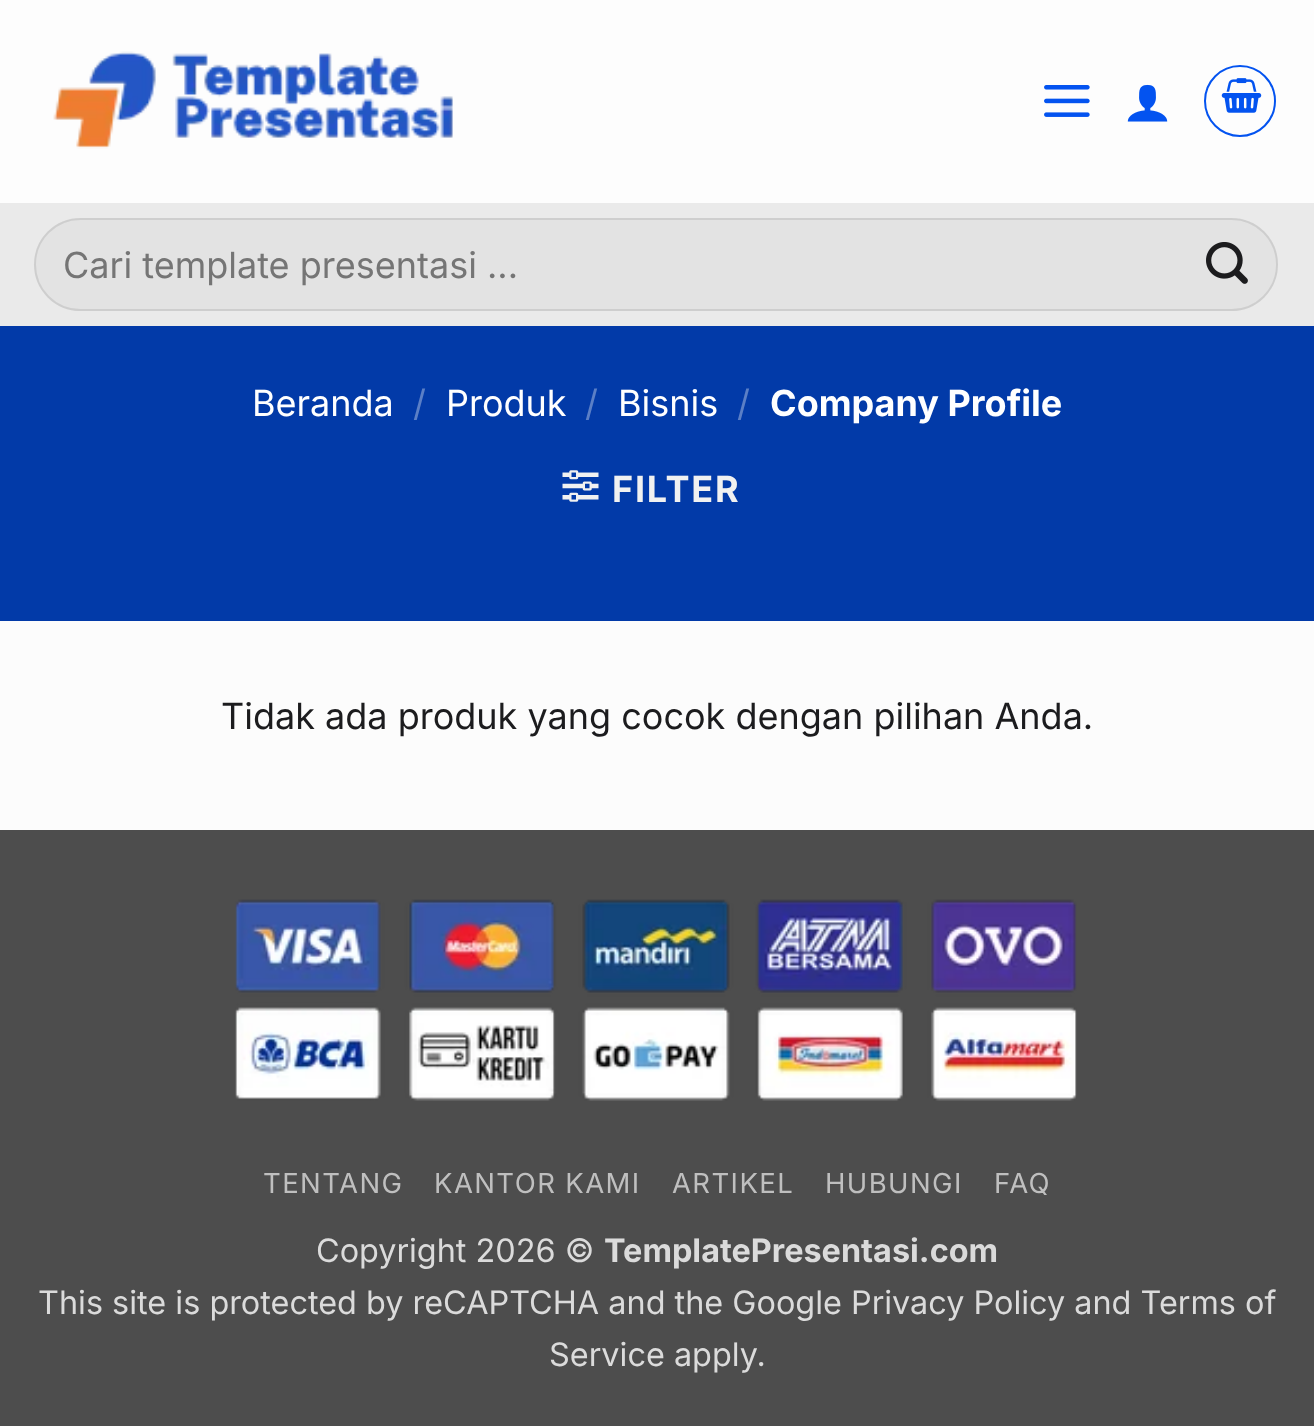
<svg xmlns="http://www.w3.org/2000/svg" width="1314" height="1426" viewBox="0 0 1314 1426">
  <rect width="100%" height="100%" fill="#4d4d4d"/>
  <rect x="0" y="0" width="1314" height="203" fill="#fdfdfd"/>
  <image x="53" y="51" width="400" height="98" href="img1.png"/>
  <image x="1044" y="85" width="46" height="32" href="img2.png"/>
  <image x="1127" y="84" width="41" height="38" href="img3.png"/>
  <circle cx="1240" cy="101" r="35" fill="none" stroke="#0353f0" stroke-width="2"/>
  <image x="1221" y="78" width="41" height="35" href="img4.png"/>
  <rect x="0" y="203" width="1314" height="123" fill="#eaeaea"/>
  <rect x="34" y="218" width="1244" height="93" rx="46.5" fill="#e3e3e3"/>
  <rect x="35" y="219" width="1242" height="91" rx="45.5" fill="none" stroke="#000000" stroke-opacity="0.09" stroke-width="2"/>
  <text x="63" y="278" font-family="Inter" font-size="36" fill="#757575">Cari template presentasi ...</text>
  <image x="1206" y="242" width="42" height="42" href="img5.png"/>
  <rect x="0" y="326" width="1314" height="295" fill="#023aa8"/>
  <text x="252" y="416" font-family="Inter" font-size="36" fill="#ffffff">Beranda</text>
  <text x="413" y="416" font-family="Inter" font-size="36" fill="#5b7fc6">/</text>
  <text x="446" y="416" font-family="Inter" font-size="36" fill="#ffffff">Produk</text>
  <text x="585" y="416" font-family="Inter" font-size="36" fill="#5b7fc6">/</text>
  <text x="618" y="416" font-family="Inter" font-size="36" fill="#ffffff">Bisnis</text>
  <text x="737" y="416" font-family="Inter" font-size="36" fill="#5b7fc6">/</text>
  <text x="770" y="416" font-family="Inter" font-size="36" font-weight="bold" fill="#ffffff">Company Profile</text>
  <image x="562" y="470" width="37" height="32" href="img6.png"/>
  <text x="612" y="502" font-family="Inter" font-size="36" font-weight="bold" letter-spacing="1.75" fill="#f1f1f1">FILTER</text>
  <rect x="0" y="621" width="1314" height="209" fill="#fcfcfc"/>
  <text x="221" y="729" font-family="Inter" font-size="36" fill="#1c1c1e">Tidak ada produk yang cocok dengan pilihan Anda.</text>
  <image x="235" y="899" width="842" height="202" href="img7.png"/>
  <text x="263" y="1193" font-family="Inter" font-size="27.5" letter-spacing="1.4" fill="#bfbfbf">TENTANG</text>
  <text x="434" y="1193" font-family="Inter" font-size="27.5" letter-spacing="1.4" fill="#bfbfbf">KANTOR KAMI</text>
  <text x="672" y="1193" font-family="Inter" font-size="27.5" letter-spacing="1.4" fill="#bfbfbf">ARTIKEL</text>
  <text x="825" y="1193" font-family="Inter" font-size="27.5" letter-spacing="1.4" fill="#bfbfbf">HUBUNGI</text>
  <text x="994" y="1193" font-family="Inter" font-size="27.5" letter-spacing="1.4" fill="#bfbfbf">FAQ</text>
  <text x="316" y="1262" font-family="Inter" font-size="32.4" fill="#dbdbdb">Copyright 2026 ©</text>
  <text x="604" y="1262" font-family="Inter" font-size="32.4" font-weight="bold" fill="#dbdbdb">TemplatePresentasi.com</text>
  <text x="38" y="1314" font-family="Inter" font-size="32.4" fill="#dbdbdb">This site is protected by reCAPTCHA and the Google</text>
  <text x="851" y="1314" font-family="Inter" font-size="32.4" fill="#dbdbdb">Privacy Policy and Terms of</text>
  <text x="549" y="1366" font-family="Inter" font-size="32.4" fill="#dbdbdb">Service apply.</text>
</svg>
